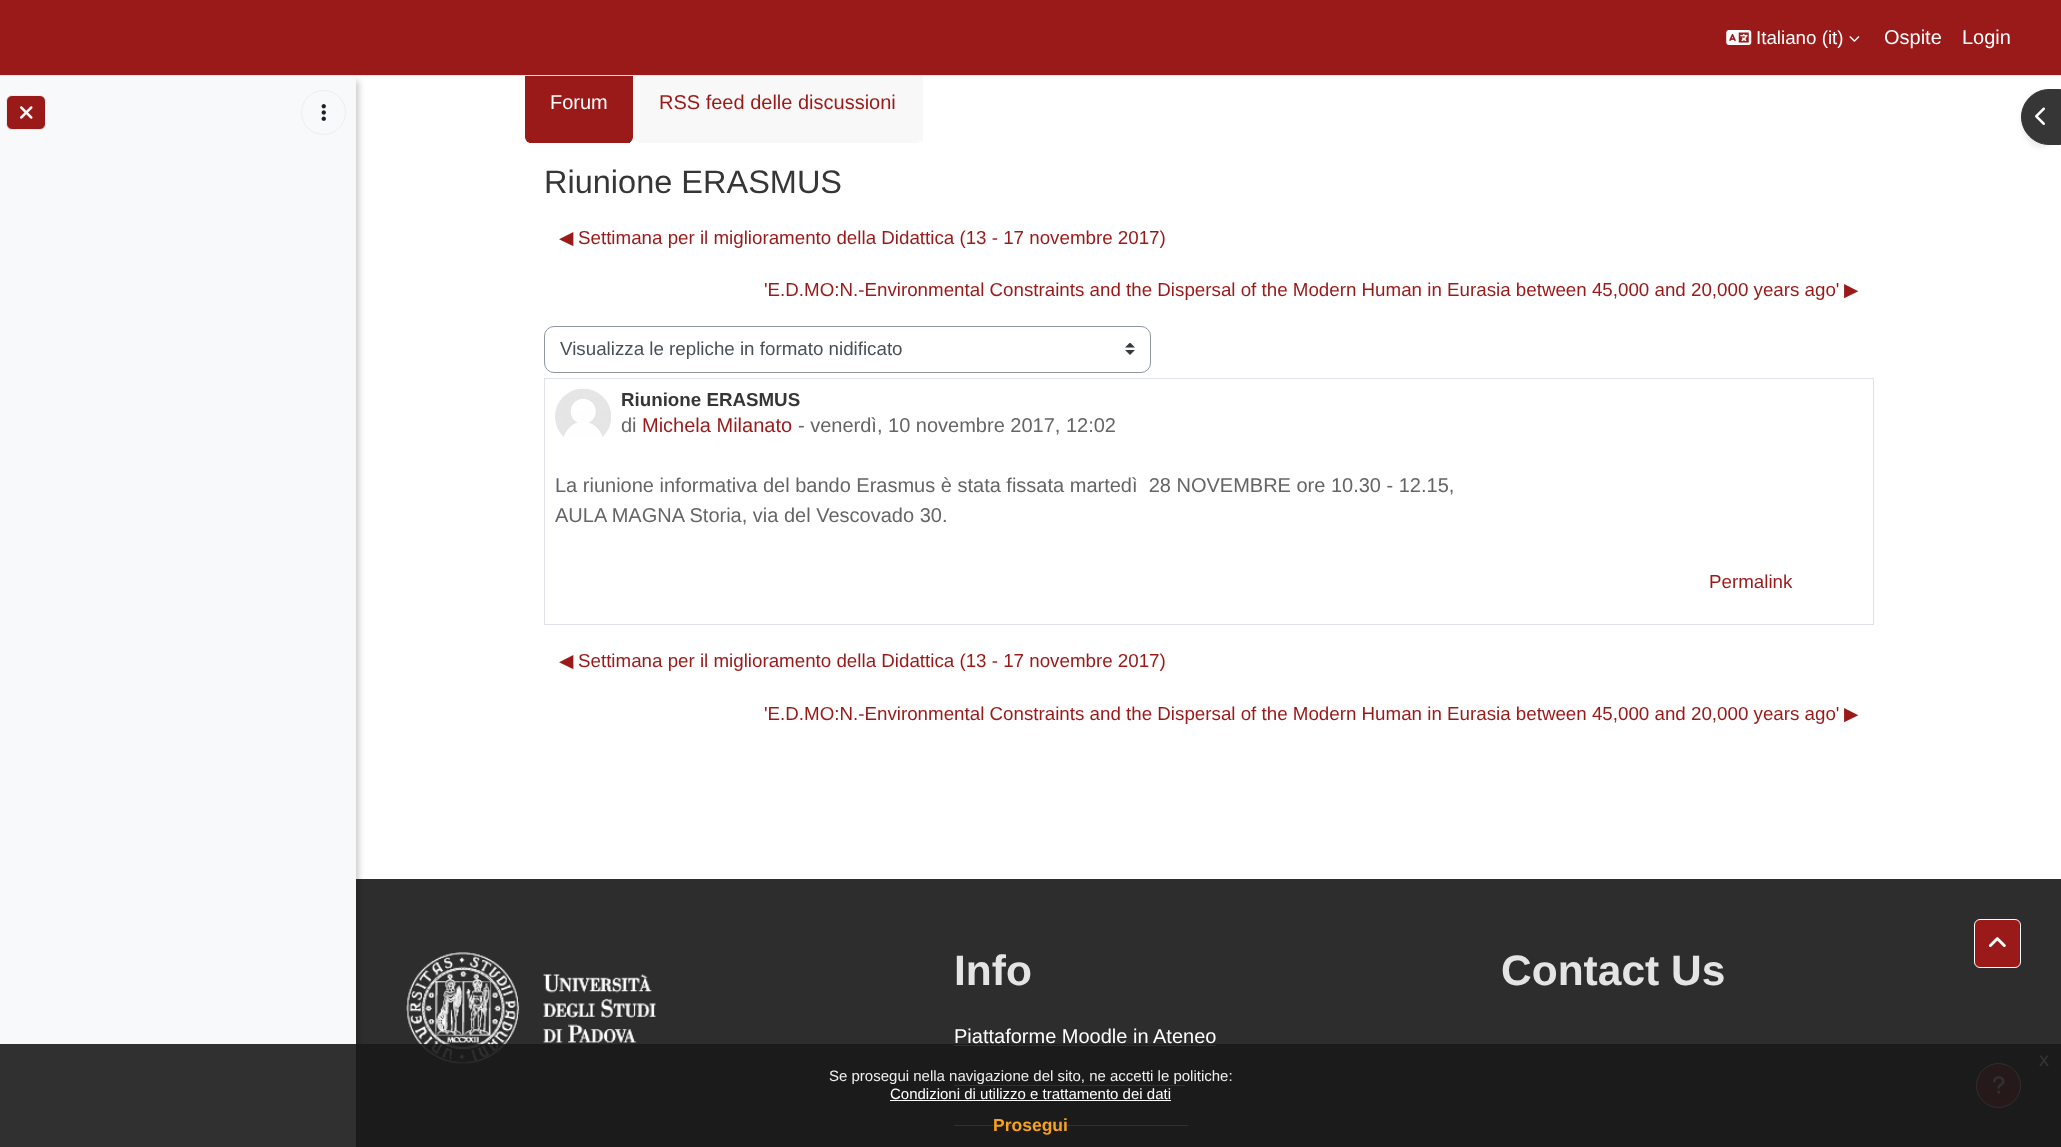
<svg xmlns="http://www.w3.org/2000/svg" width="2061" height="1147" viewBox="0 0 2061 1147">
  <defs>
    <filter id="blur1" x="-50%" y="-200%" width="200%" height="500%"><feGaussianBlur stdDeviation="3"/></filter>
    <filter id="blur2" x="-50%" y="-200%" width="200%" height="500%"><feGaussianBlur stdDeviation="2.5"/></filter>
  </defs>
  <rect width="100%" height="100%" fill="#ffffff"/>
  <rect x="356" y="879" width="1705" height="268" fill="#2d2d2d"/>
  <rect x="3" y="81" width="356" height="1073" fill="#000000" fill-opacity="0.2" filter="url(#blur1)"/>
  <rect x="525" y="76" width="398" height="65" fill="#f8f8f8"/>
  <rect x="525" y="68" width="108" height="75" rx="6" fill="#9a1919"/>
  <rect x="634" y="68" width="287" height="75" rx="6" fill="#f8f8f8"/>
  <rect x="0" y="0" width="2061" height="75" fill="#9a1919"/>
  <rect x="0" y="75" width="2061" height="1" fill="#e8e3e3"/>
  <image x="1726" y="30" width="26" height="15" href="img1.png"/>
  <text x="1756" y="44" font-family="Liberation Sans" font-size="18.75" fill="#ffffff">Italiano (it)</text>
  <image x="1849" y="36" width="11" height="6" href="img2.png"/>
  <text x="1884" y="44" font-family="Liberation Sans" font-size="20" fill="#ffffff">Ospite</text>
  <text x="1962" y="44" font-family="Liberation Sans" font-size="20" fill="#ffffff">Login</text>
  <rect x="0" y="76" width="356" height="1071" fill="#f8f9fa"/>
  <rect x="6.5" y="95.5" width="39" height="34" rx="5.5" fill="#9a1919" stroke="#eeeeee"/>
  <image x="20" y="106" width="13" height="13" href="img3.png"/>
  <circle cx="323.5" cy="112.5" r="22" fill="none" stroke="#eeeeee"/>
  <image x="321" y="104" width="5" height="17" href="img4.png"/>
  <rect x="529" y="142" width="101" height="1" fill="#9a1919"/>
  <text x="550" y="109" font-family="Liberation Sans" font-size="20" fill="#ffffff">Forum</text>
  <rect x="917" y="142" width="2" height="1" fill="#f8f8f8"/>
  <text x="659" y="109" font-family="Liberation Sans" font-size="20" fill="#9a1919">RSS feed delle discussioni</text>
  <rect x="2021" y="91" width="40" height="57" rx="28" fill="#000000" fill-opacity="0.07" filter="url(#blur2)"/>
  <path d="M2049 89.5H2060.5V144.5H2049C2034 144.5 2021.5 132 2021.5 117C2021.5 102 2034 89.5 2049 89.5Z" fill="#363636" stroke="#363636"/>
  <image x="2035" y="107" width="10" height="18" href="img5.png"/>
  <text x="544" y="193" font-family="Liberation Sans" font-size="32.5" fill="#363636">Riunione ERASMUS</text>
  <text x="559" y="244" font-family="DejaVu Sans" font-size="18.75" fill="#9a1919">◀︎</text>
  <text x="578" y="244" font-family="Liberation Sans" font-size="18.75" fill="#9a1919">Settimana per il miglioramento della Didattica (13 - 17 novembre 2017)</text>
  <text x="764" y="296" font-family="Liberation Sans" font-size="18.75" fill="#9a1919">'E.D.MO:N.-Environmental Constraints and the Dispersal of the Modern Human in Eurasia between 45,000 and 20,000 years ago'</text>
  <text x="1844" y="296" font-family="DejaVu Sans" font-size="18.75" fill="#9a1919">▶︎</text>
  <image x="1125" y="343" width="10" height="12" href="img6.png"/>
  <rect x="544.5" y="326.5" width="606" height="46" rx="9.5" fill="none" stroke="#8f959e"/>
  <text x="560" y="355" font-family="Liberation Sans" font-size="18.75" fill="#495057">Visualizza le repliche in formato nidificato</text>
  <rect x="544.5" y="378.5" width="1329" height="246" fill="none" stroke="#dee2e6"/>
  <image x="555" y="388" width="56" height="49" href="img7.png"/>
  <text x="621" y="406" font-family="Liberation Sans" font-size="18.75" font-weight="bold" fill="#363636">Riunione ERASMUS</text>
  <text x="621" y="432" font-family="Liberation Sans" font-size="20" fill="#656565">di</text>
  <text x="642" y="432" font-family="Liberation Sans" font-size="20" fill="#9a1919">Michela Milanato</text>
  <text x="798" y="432" font-family="Liberation Sans" font-size="20" fill="#656565">- venerdì, 10 novembre 2017, 12:02</text>
  <text x="555" y="492" font-family="Liberation Sans" font-size="20" fill="#656565" xml:space="preserve">La riunione informativa del bando Erasmus è stata fissata martedì  28 NOVEMBRE ore 10.30 - 12.15,</text>
  <text x="555" y="522" font-family="Liberation Sans" font-size="20" fill="#656565">AULA MAGNA Storia, via del Vescovado 30.</text>
  <text x="1709" y="588" font-family="Liberation Sans" font-size="18.75" fill="#9a1919">Permalink</text>
  <text x="559" y="667" font-family="DejaVu Sans" font-size="18.75" fill="#9a1919">◀︎</text>
  <text x="578" y="667" font-family="Liberation Sans" font-size="18.75" fill="#9a1919">Settimana per il miglioramento della Didattica (13 - 17 novembre 2017)</text>
  <text x="764" y="720" font-family="Liberation Sans" font-size="18.75" fill="#9a1919">'E.D.MO:N.-Environmental Constraints and the Dispersal of the Modern Human in Eurasia between 45,000 and 20,000 years ago'</text>
  <text x="1844" y="720" font-family="DejaVu Sans" font-size="18.75" fill="#9a1919">▶︎</text>
  <rect x="1974.5" y="919.5" width="46" height="48" rx="5.5" fill="#9a1919" stroke="#ffffff"/>
  <image x="1988" y="937" width="18" height="10" href="img8.png"/>
  <image x="406" y="952" width="250" height="112" href="img9.png"/>
  <text x="954" y="985" font-family="Liberation Sans" font-size="42.5" font-weight="bold" fill="#e4e4e4">Info</text>
  <text x="954" y="1043" font-family="Liberation Sans" font-size="20" fill="#ffffff">Piattaforme Moodle in Ateneo</text>
  <rect x="954" y="1045" width="262" height="1" fill="#ffffff"/>
  <rect x="954" y="1085" width="231" height="1" fill="#ffffff"/>
  <rect x="954" y="1125" width="234" height="1" fill="#ffffff"/>
  <text x="1501" y="985" font-family="Liberation Sans" font-size="42.5" font-weight="bold" fill="#e4e4e4">Contact Us</text>
  <circle cx="1998.5" cy="1085.5" r="22" fill="#9a1919" stroke="#eeeeee"/>
  <image x="1993" y="1076" width="12" height="18" href="img10.png"/>
  <rect x="0" y="1044" width="2061" height="103" fill="#191919" fill-opacity="0.9"/>
  <text x="2039" y="1066" font-family="Liberation Sans" font-size="20" fill="#363636">x</text>
  <text x="829" y="1081" font-family="Liberation Sans" font-size="15" fill="#efefef">Se prosegui nella navigazione del sito, ne accetti le politiche:</text>
  <text x="890" y="1099" font-family="Liberation Sans" font-size="15" fill="#ffffff">Condizioni di utilizzo e trattamento dei dati</text>
  <rect x="890" y="1100" width="281" height="1" fill="#ffffff"/>
  <text x="993" y="1131" font-family="Liberation Sans" font-size="17.5" font-weight="bold" fill="#f6a21d">Prosegui</text>
</svg>
